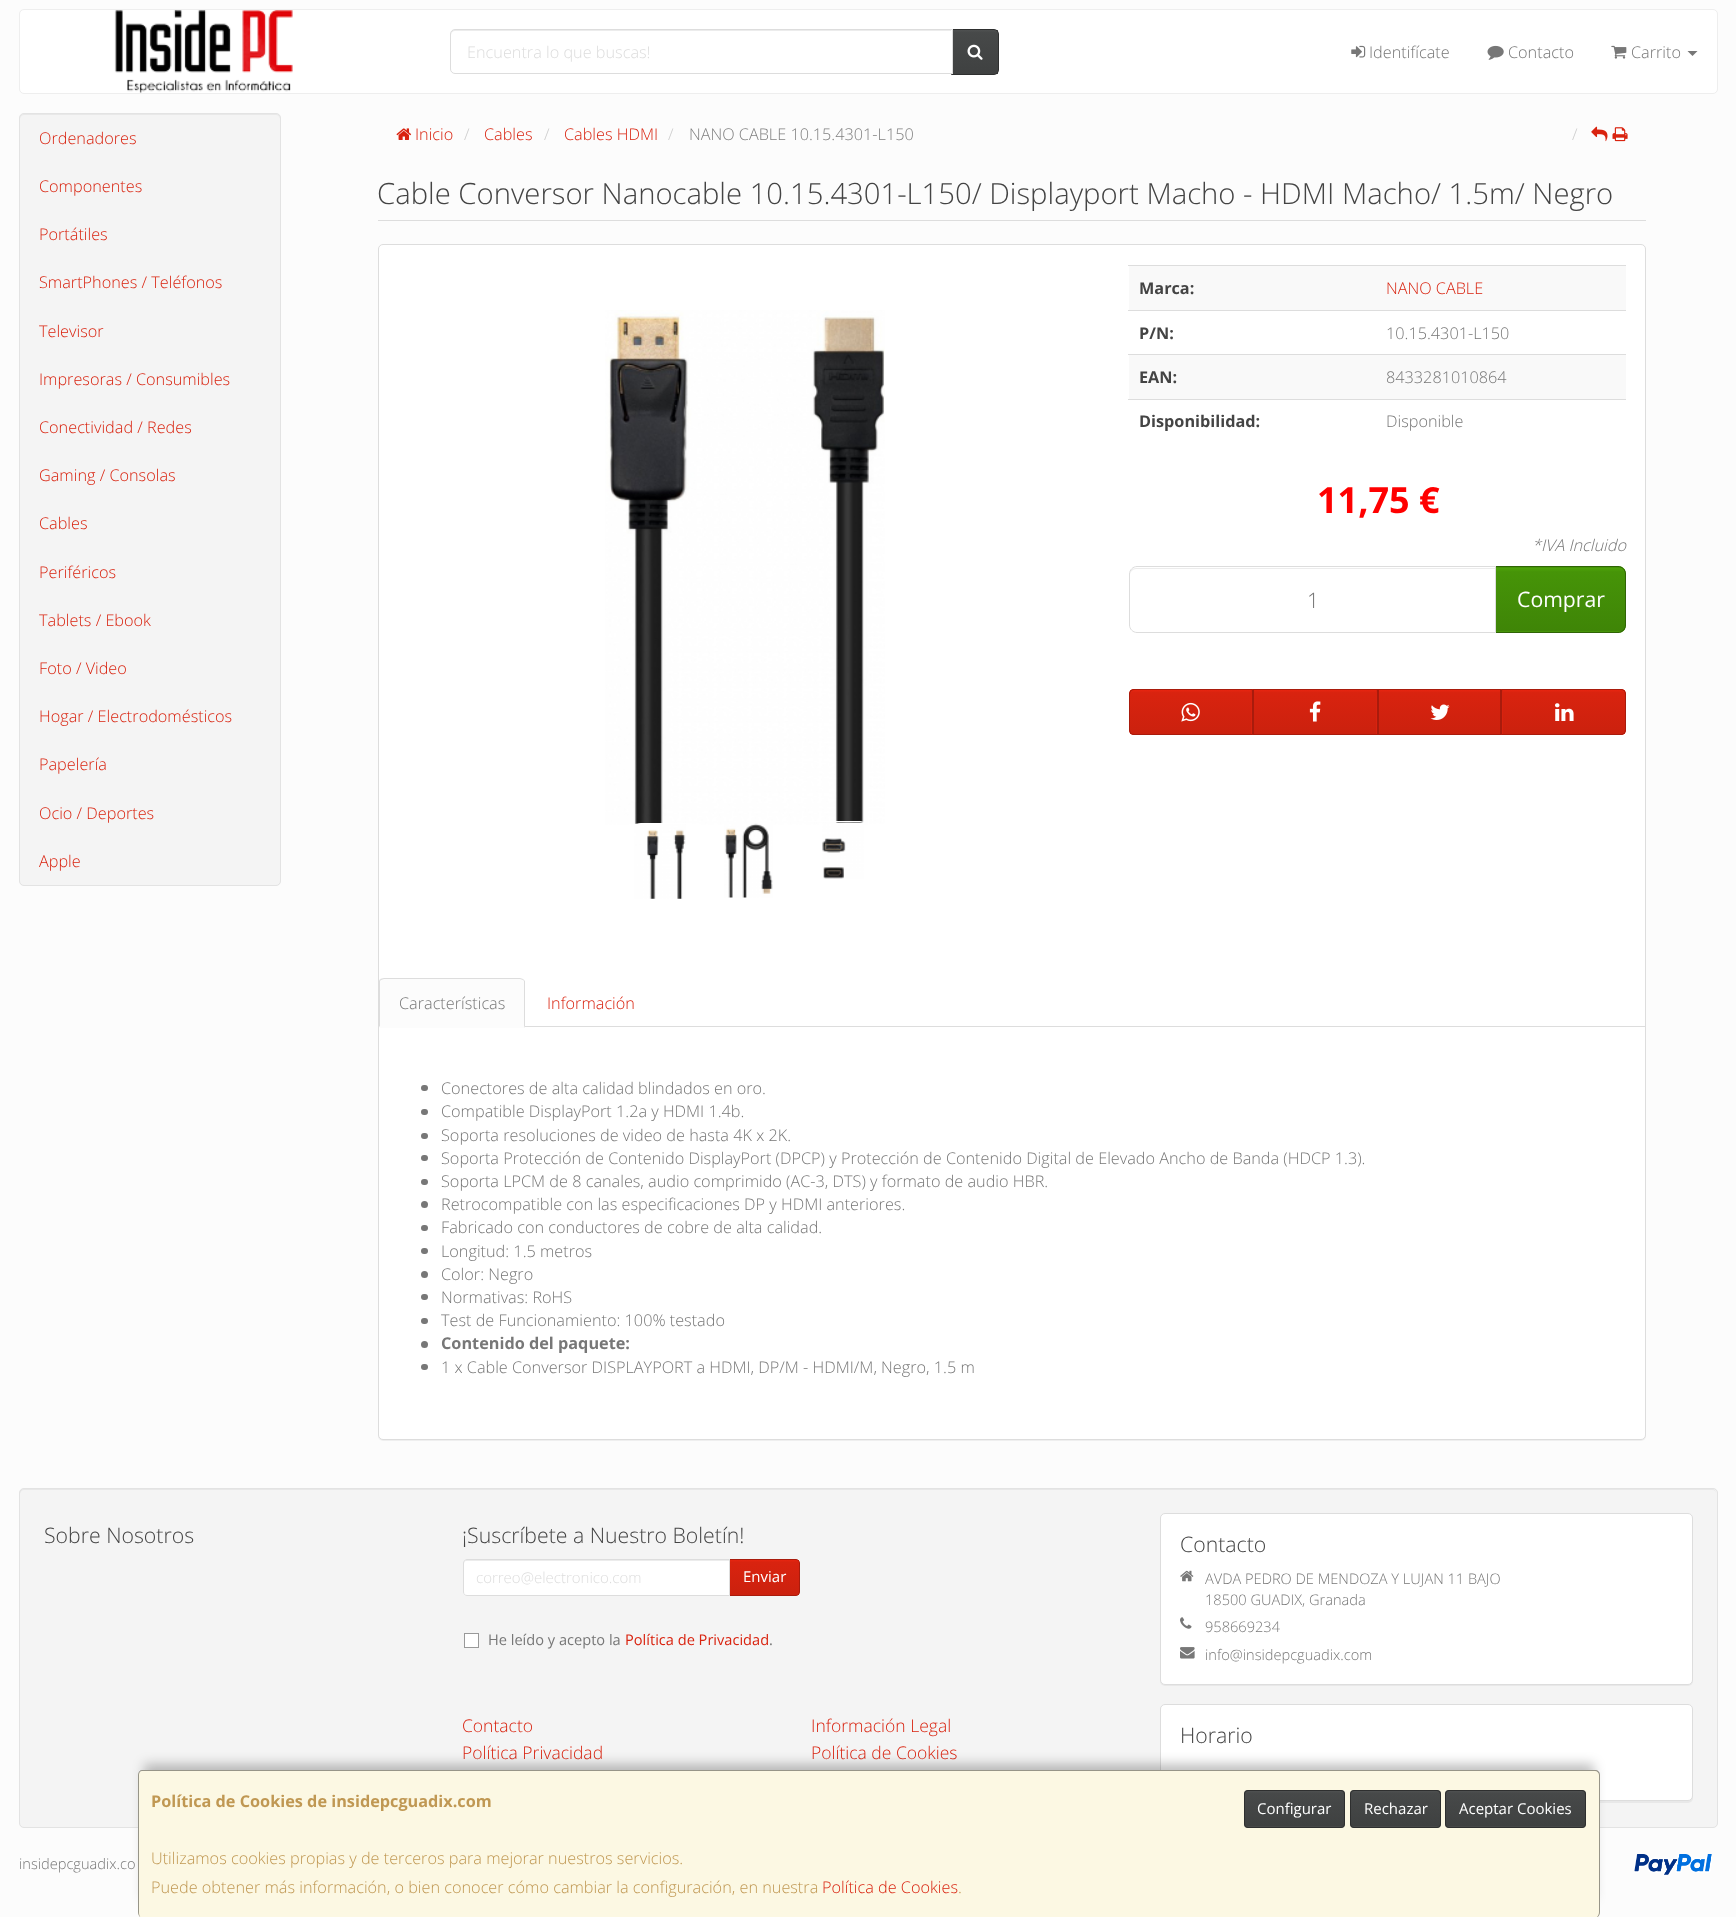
<svg xmlns="http://www.w3.org/2000/svg" width="1736" height="1917" viewBox="0 0 1736 1917">
  <defs>
    <linearGradient id="g1" gradientUnits="userSpaceOnUse" x1="975" y1="30" x2="975" y2="74"><stop offset="0" stop-color="#4f5151"/><stop offset="0.06" stop-color="#474949"/><stop offset="1" stop-color="#3f4141"/></linearGradient>
    <filter id="blur1" x="-50%" y="-200%" width="200%" height="500%"><feGaussianBlur stdDeviation="0.5"/></filter>
    <clipPath id="clip1"><path d="M1495 566H1618C1622.5 566 1626 569.5 1626 574V625C1626 629.5 1622.5 633 1618 633H1495Z"/></clipPath>
    <linearGradient id="g2" gradientUnits="userSpaceOnUse" x1="1561" y1="568" x2="1561" y2="631"><stop offset="0" stop-color="#4da309"/><stop offset="0.06" stop-color="#469408"/><stop offset="1" stop-color="#3f8507"/></linearGradient>
    <linearGradient id="g3" gradientUnits="userSpaceOnUse" x1="1191" y1="690" x2="1191" y2="734"><stop offset="0" stop-color="#e72510"/><stop offset="0.06" stop-color="#d9230f"/><stop offset="1" stop-color="#cb210e"/></linearGradient>
    <linearGradient id="g4" gradientUnits="userSpaceOnUse" x1="1315" y1="690" x2="1315" y2="734"><stop offset="0" stop-color="#e72510"/><stop offset="0.06" stop-color="#d9230f"/><stop offset="1" stop-color="#cb210e"/></linearGradient>
    <linearGradient id="g5" gradientUnits="userSpaceOnUse" x1="1439" y1="690" x2="1439" y2="734"><stop offset="0" stop-color="#e72510"/><stop offset="0.06" stop-color="#d9230f"/><stop offset="1" stop-color="#cb210e"/></linearGradient>
    <linearGradient id="g6" gradientUnits="userSpaceOnUse" x1="1564" y1="690" x2="1564" y2="734"><stop offset="0" stop-color="#e72510"/><stop offset="0.06" stop-color="#d9230f"/><stop offset="1" stop-color="#cb210e"/></linearGradient>
    <linearGradient id="g7" gradientUnits="userSpaceOnUse" x1="764" y1="1560" x2="764" y2="1595"><stop offset="0" stop-color="#e72510"/><stop offset="0.06" stop-color="#d9230f"/><stop offset="1" stop-color="#cb210e"/></linearGradient>
    <filter id="blur2" x="-50%" y="-200%" width="200%" height="500%"><feGaussianBlur stdDeviation="6"/></filter>
    <linearGradient id="g8" gradientUnits="userSpaceOnUse" x1="1294" y1="1791" x2="1294" y2="1826"><stop offset="0" stop-color="#4f5151"/><stop offset="0.06" stop-color="#474949"/><stop offset="1" stop-color="#3f4141"/></linearGradient>
    <linearGradient id="g9" gradientUnits="userSpaceOnUse" x1="1396" y1="1791" x2="1396" y2="1826"><stop offset="0" stop-color="#4f5151"/><stop offset="0.06" stop-color="#474949"/><stop offset="1" stop-color="#3f4141"/></linearGradient>
    <linearGradient id="g10" gradientUnits="userSpaceOnUse" x1="1516" y1="1791" x2="1516" y2="1826"><stop offset="0" stop-color="#4f5151"/><stop offset="0.06" stop-color="#474949"/><stop offset="1" stop-color="#3f4141"/></linearGradient>
  </defs>
  <rect width="100%" height="100%" fill="#fcfcfc"/>
  <rect x="19.5" y="9.5" width="1698" height="84" rx="4.5" fill="#ffffff" stroke="#eeeeee"/>
  <image x="114" y="10" width="179" height="83" href="img1.png"/>
  <rect x="953" y="30" width="45" height="44" fill="url(#g1)"/>
  <path d="M951.5 29.5H994C996.5 29.5 998.5 31.5 998.5 34V70C998.5 72.5 996.5 74.5 994 74.5H951.5Z" fill="none" stroke="#2e2f2f"/>
  <path d="M455 29H953V74H455C452 74 450 72 450 69V34C450 31 452 29 455 29Z" fill="#ffffff"/>
  <path d="M455 31H951V30H455C452 30 451 32 451 35C451 33 453 31 455 31Z" fill="#ececec"/>
  <path d="M455 29.5H952.5V73.5H455C452.5 73.5 450.5 71.5 450.5 69V34C450.5 31.5 452.5 29.5 455 29.5Z" fill="none" stroke="#dddddd"/>
  <text x="467" y="58" font-family="Open Sans" font-size="16.25" font-weight="300" fill="#dddddd">Encuentra lo que buscas!</text>
  <image x="967" y="44" width="16" height="16" href="img2.png"/>
  <image x="1351" y="45" width="15" height="13" href="img3.png"/>
  <text x="1369" y="58" font-family="Open Sans" font-size="16.25" font-weight="300" fill="#777777">Identifícate</text>
  <image x="1487" y="45" width="17" height="15" href="img4.png"/>
  <text x="1508" y="58" font-family="Open Sans" font-size="16.25" font-weight="300" fill="#777777">Contacto</text>
  <image x="1611" y="45" width="16" height="14" href="img5.png"/>
  <text x="1631" y="58" font-family="Open Sans" font-size="16.25" font-weight="300" fill="#777777">Carrito</text>
  <path d="M1687.5 51H1697.5L1692.5 56Z" fill="#777777"/>
  <rect x="19" y="113" width="262" height="773" rx="5" fill="#f4f4f4"/>
  <path d="M24 115H276C278 115 280 117 280 119V118C280 116 278 114 276 114H24C22 114 20 116 20 118V119C20 117 22 115 24 115Z" fill="#e8e8e8"/>
  <rect x="19.5" y="113.5" width="261" height="772" rx="4.5" fill="none" stroke="#e3e3e3"/>
  <text x="39" y="144" font-family="Open Sans" font-size="16.25" font-weight="300" fill="#d9230f">Ordenadores</text>
  <text x="39" y="192" font-family="Open Sans" font-size="16.25" font-weight="300" fill="#d9230f">Componentes</text>
  <text x="39" y="240" font-family="Open Sans" font-size="16.25" font-weight="300" fill="#d9230f">Portátiles</text>
  <text x="39" y="288" font-family="Open Sans" font-size="16.25" font-weight="300" fill="#d9230f">SmartPhones / Teléfonos</text>
  <text x="39" y="337" font-family="Open Sans" font-size="16.25" font-weight="300" fill="#d9230f">Televisor</text>
  <text x="39" y="385" font-family="Open Sans" font-size="16.25" font-weight="300" fill="#d9230f">Impresoras / Consumibles</text>
  <text x="39" y="433" font-family="Open Sans" font-size="16.25" font-weight="300" fill="#d9230f">Conectividad / Redes</text>
  <text x="39" y="481" font-family="Open Sans" font-size="16.25" font-weight="300" fill="#d9230f">Gaming / Consolas</text>
  <text x="39" y="529" font-family="Open Sans" font-size="16.25" font-weight="300" fill="#d9230f">Cables</text>
  <text x="39" y="578" font-family="Open Sans" font-size="16.25" font-weight="300" fill="#d9230f">Periféricos</text>
  <text x="39" y="626" font-family="Open Sans" font-size="16.25" font-weight="300" fill="#d9230f">Tablets / Ebook</text>
  <text x="39" y="674" font-family="Open Sans" font-size="16.25" font-weight="300" fill="#d9230f">Foto / Video</text>
  <text x="39" y="722" font-family="Open Sans" font-size="16.25" font-weight="300" fill="#d9230f">Hogar / Electrodomésticos</text>
  <text x="39" y="770" font-family="Open Sans" font-size="16.25" font-weight="300" fill="#d9230f">Papelería</text>
  <text x="39" y="819" font-family="Open Sans" font-size="16.25" font-weight="300" fill="#d9230f">Ocio / Deportes</text>
  <text x="39" y="867" font-family="Open Sans" font-size="16.25" font-weight="300" fill="#d9230f">Apple</text>
  <image x="396" y="128" width="16" height="12" href="img6.png"/>
  <text x="415" y="140" font-family="Open Sans" font-size="16.25" font-weight="300" fill="#d9230f">Inicio</text>
  <text x="464" y="140" font-family="Open Sans" font-size="16.25" font-weight="300" fill="#cccccc">/</text>
  <text x="484" y="140" font-family="Open Sans" font-size="16.25" font-weight="300" fill="#d9230f">Cables</text>
  <text x="544" y="140" font-family="Open Sans" font-size="16.25" font-weight="300" fill="#cccccc">/</text>
  <text x="564" y="140" font-family="Open Sans" font-size="16.25" font-weight="300" fill="#d9230f">Cables HDMI</text>
  <text x="668" y="140" font-family="Open Sans" font-size="16.25" font-weight="300" fill="#cccccc">/</text>
  <text x="689" y="140" font-family="Open Sans" font-size="16.25" font-weight="300" fill="#808080">NANO CABLE 10.15.4301-L150</text>
  <text x="1572" y="140" font-family="Open Sans" font-size="16.25" font-weight="300" fill="#cccccc">/</text>
  <image x="1591" y="126" width="17" height="16" href="img7.png"/>
  <image x="1612" y="127" width="16" height="15" href="img8.png"/>
  <rect x="378" y="220" width="1268" height="1" fill="#dddddd"/>
  <text x="377" y="204" font-family="Open Sans" font-size="29.25" font-weight="300" fill="#444444">Cable Conversor Nanocable 10.15.4301-L150/ Displayport Macho - HDMI Macho/ 1.5m/ Negro</text>
  <rect x="378" y="245" width="1268" height="1196" rx="5" fill="#000000" fill-opacity="0.05" filter="url(#blur1)"/>
  <rect x="378.5" y="244.5" width="1267" height="1195" rx="4.5" fill="#ffffff" stroke="#dddddd"/>
  <image x="605" y="310" width="280" height="515" href="img9.png"/>
  <rect x="628.5" y="823.5" width="76" height="74" rx="12.5" fill="#ffffff" stroke="#ffffff"/>
  <image x="634" y="823" width="52" height="76" href="img10.png"/>
  <image x="724" y="823" width="49" height="75" href="img11.png"/>
  <rect x="795.5" y="821.5" width="77" height="74" rx="12.5" fill="none" stroke="#ffffff"/>
  <image x="822" y="822" width="42" height="57" href="img12.png"/>
  <rect x="1129" y="266" width="497" height="44" fill="#f9f9f9"/>
  <text x="1139" y="294" font-family="Open Sans" font-size="16.25" font-weight="bold" fill="#444444">Marca:</text>
  <rect x="1128" y="265" width="498" height="1" fill="#dddddd"/>
  <text x="1386" y="294" font-family="Open Sans" font-size="16.25" font-weight="300" fill="#d9230f">NANO CABLE</text>
  <text x="1139" y="339" font-family="Open Sans" font-size="16.25" font-weight="bold" fill="#444444">P/N:</text>
  <rect x="1128" y="310" width="498" height="1" fill="#dddddd"/>
  <text x="1386" y="339" font-family="Open Sans" font-size="16.25" font-weight="300" fill="#777777">10.15.4301-L150</text>
  <rect x="1129" y="355" width="497" height="44" fill="#f9f9f9"/>
  <text x="1139" y="383" font-family="Open Sans" font-size="16.25" font-weight="bold" fill="#444444">EAN:</text>
  <rect x="1128" y="354" width="498" height="1" fill="#dddddd"/>
  <text x="1386" y="383" font-family="Open Sans" font-size="16.25" font-weight="300" fill="#777777">8433281010864</text>
  <text x="1139" y="427" font-family="Open Sans" font-size="16.25" font-weight="bold" fill="#444444">Disponibilidad:</text>
  <rect x="1128" y="399" width="498" height="1" fill="#dddddd"/>
  <text x="1386" y="427" font-family="Open Sans" font-size="16.25" font-weight="300" fill="#777777">Disponible</text>
  <text x="1317" y="513" font-family="Open Sans" font-size="36" font-weight="bold" fill="#ff0000">11,75 €</text>
  <text x="1532" y="551" font-family="Open Sans" font-size="16.25" font-weight="300" font-style="italic" fill="#777777">*IVA Incluido</text>
  <path d="M1495 566H1618C1622.5 566 1626 569.5 1626 574V625C1626 629.5 1622.5 633 1618 633H1495Z" fill="#469408"/>
  <g clip-path="url(#clip1)">
    <rect x="1496" y="568" width="129" height="63" fill="url(#g2)"/>
  </g>
  <path d="M1495.5 566.5H1618C1622 566.5 1625.5 570 1625.5 574V625C1625.5 629 1622 632.5 1618 632.5H1495.5Z" fill="none" stroke="#2f6405"/>
  <path d="M1137 566H1496V633H1137C1132.5 633 1129 629.5 1129 625V574C1129 569.5 1132.5 566 1137 566Z" fill="#ffffff"/>
  <path d="M1136 569H1495V568H1136C1132 568 1130 571 1130 575C1130 572 1133 569 1136 569Z" fill="#ececec"/>
  <path d="M1137 566.5H1495.5V632.5H1137C1133 632.5 1129.5 629 1129.5 625V574C1129.5 570 1133 566.5 1137 566.5Z" fill="none" stroke="#dddddd"/>
  <text x="1307" y="608" font-family="Open Sans" font-size="21.25" font-weight="300" fill="#777777">1</text>
  <text x="1517" y="607" font-family="Open Sans" font-size="21.25" fill="#ffffff">Comprar</text>
  <path d="M1134 689H1253V735H1134C1131 735 1129 733 1129 730V694C1129 691 1131 689 1134 689Z" fill="#d9230f"/>
  <rect x="1130" y="690" width="121" height="44" fill="url(#g3)"/>
  <path d="M1134 689.5H1252.5V734.5H1134C1131.5 734.5 1129.5 732.5 1129.5 730V694C1129.5 691.5 1131.5 689.5 1134 689.5Z" fill="none" stroke="#a91b0c"/>
  <image x="1181" y="702" width="19" height="20" href="img13.png"/>
  <rect x="1376" y="690" width="1" height="44" fill="#d9230f"/>
  <rect x="1254" y="690" width="122" height="44" fill="url(#g4)"/>
  <rect x="1253.5" y="689.5" width="124" height="45" fill="none" stroke="#a91b0c"/>
  <image x="1309" y="701" width="12" height="21" href="img14.png"/>
  <rect x="1379" y="690" width="121" height="44" fill="url(#g5)"/>
  <rect x="1378.5" y="689.5" width="122" height="45" fill="none" stroke="#a91b0c"/>
  <image x="1430" y="704" width="20" height="16" href="img15.png"/>
  <path d="M1501 689H1621C1624 689 1626 691 1626 694V730C1626 733 1624 735 1621 735H1501Z" fill="#d9230f"/>
  <rect x="1503" y="690" width="122" height="44" fill="url(#g6)"/>
  <path d="M1501.5 689.5H1621C1623.5 689.5 1625.5 691.5 1625.5 694V730C1625.5 732.5 1623.5 734.5 1621 734.5H1501.5Z" fill="none" stroke="#a91b0c"/>
  <image x="1555" y="703" width="19" height="18" href="img16.png"/>
  <rect x="525" y="1026" width="1120" height="1" fill="#dddddd"/>
  <path d="M384 978H520C523 978 525 980 525 983V1028H379V983C379 980 381 978 384 978Z" fill="#fcfcfc"/>
  <path d="M384 978L380 979L381 980L384 979H520L523 980V979L520 978Z" fill="#dddddd"/>
  <path d="M525 1028V981L523 979V980L524 981V1026Z" fill="#dddddd"/>
  <path d="M380 979L379 981V1027L380 1026V981L381 980Z" fill="#dddddd"/>
  <text x="399" y="1009" font-family="Open Sans" font-size="16.25" font-weight="300" fill="#777777">Características</text>
  <text x="547" y="1009" font-family="Open Sans" font-size="16.25" font-weight="300" fill="#d9230f">Información</text>
  <rect x="421" y="1085" width="7" height="6" rx="3" fill="#777777"/>
  <text x="441" y="1094" font-family="Open Sans" font-size="16.25" font-weight="300" fill="#777777">Conectores de alta calidad blindados en oro.</text>
  <rect x="421" y="1109" width="7" height="6" rx="3" fill="#777777"/>
  <text x="441" y="1117" font-family="Open Sans" font-size="16.25" font-weight="300" fill="#777777">Compatible DisplayPort 1.2a y HDMI 1.4b.</text>
  <rect x="421" y="1133" width="7" height="6" rx="3" fill="#777777"/>
  <text x="441" y="1141" font-family="Open Sans" font-size="16.25" font-weight="300" fill="#777777">Soporta resoluciones de video de hasta 4K x 2K.</text>
  <rect x="421" y="1155" width="7" height="6" rx="3" fill="#777777"/>
  <text x="441" y="1164" font-family="Open Sans" font-size="16.25" font-weight="300" fill="#777777">Soporta Protección de Contenido DisplayPort (DPCP) y Protección de Contenido Digital de Elevado Ancho de Banda (HDCP 1.3).</text>
  <rect x="421" y="1179" width="7" height="6" rx="3" fill="#777777"/>
  <text x="441" y="1187" font-family="Open Sans" font-size="16.25" font-weight="300" fill="#777777">Soporta LPCM de 8 canales, audio comprimido (AC-3, DTS) y formato de audio HBR.</text>
  <circle cx="424.5" cy="1204.5" r="3.5" fill="#777777"/>
  <text x="441" y="1210" font-family="Open Sans" font-size="16.25" font-weight="300" fill="#777777">Retrocompatible con las especificaciones DP y HDMI anteriores.</text>
  <rect x="421" y="1225" width="7" height="6" rx="3" fill="#777777"/>
  <text x="441" y="1233" font-family="Open Sans" font-size="16.25" font-weight="300" fill="#777777">Fabricado con conductores de cobre de alta calidad.</text>
  <rect x="421" y="1248" width="7" height="6" rx="3" fill="#777777"/>
  <text x="441" y="1257" font-family="Open Sans" font-size="16.25" font-weight="300" fill="#777777">Longitud: 1.5 metros</text>
  <circle cx="424.5" cy="1274.5" r="3.5" fill="#777777"/>
  <text x="441" y="1280" font-family="Open Sans" font-size="16.25" font-weight="300" fill="#777777">Color: Negro</text>
  <rect x="421" y="1294" width="7" height="6" rx="3" fill="#777777"/>
  <text x="441" y="1303" font-family="Open Sans" font-size="16.25" font-weight="300" fill="#777777">Normativas: RoHS</text>
  <rect x="421" y="1318" width="7" height="6" rx="3" fill="#777777"/>
  <text x="441" y="1326" font-family="Open Sans" font-size="16.25" font-weight="300" fill="#777777">Test de Funcionamiento: 100% testado</text>
  <circle cx="424.5" cy="1344.5" r="3.5" fill="#777777"/>
  <text x="441" y="1349" font-family="Open Sans" font-size="16.25" font-weight="bold" fill="#777777">Contenido del paquete:</text>
  <rect x="421" y="1364" width="7" height="6" rx="3" fill="#777777"/>
  <text x="441" y="1373" font-family="Open Sans" font-size="16.25" font-weight="300" fill="#777777">1 x Cable Conversor DISPLAYPORT a HDMI, DP/M - HDMI/M, Negro, 1.5 m</text>
  <rect x="19" y="1488" width="1699" height="340" rx="5" fill="#f4f4f4"/>
  <path d="M24 1490H1712C1715 1490 1716 1492 1716 1494C1716 1491 1715 1489 1712 1489H24C22 1489 20 1490 20 1492V1494C20 1492 22 1490 24 1490Z" fill="#e8e8e8"/>
  <rect x="19.5" y="1488.5" width="1698" height="339" rx="4.5" fill="none" stroke="#e3e3e3"/>
  <text x="44" y="1543" font-family="Open Sans" font-size="21.25" font-weight="300" fill="#444444">Sobre Nosotros</text>
  <text x="462" y="1543" font-family="Open Sans" font-size="21.25" font-weight="300" fill="#444444">¡Suscríbete a Nuestro Boletín!</text>
  <rect x="730" y="1560" width="69" height="35" fill="url(#g7)"/>
  <path d="M729.5 1559.5H796C798 1559.5 799.5 1561 799.5 1563V1592C799.5 1594 798 1595.5 796 1595.5H729.5Z" fill="none" stroke="#a91b0c"/>
  <path d="M467 1559H730V1596H467C465 1596 463 1594 463 1592V1563C463 1561 465 1559 467 1559Z" fill="#ffffff"/>
  <path d="M466 1561H729V1560H466C465 1560 464 1561 464 1562V1564C464 1562 465 1561 466 1561Z" fill="#ececec"/>
  <path d="M467 1559.5H729.5V1595.5H467C465 1595.5 463.5 1594 463.5 1592V1563C463.5 1561 465 1559.5 467 1559.5Z" fill="none" stroke="#dddddd"/>
  <text x="476" y="1583" font-family="Open Sans" font-size="15" font-weight="300" fill="#dddddd">correo@electronico.com</text>
  <text x="743" y="1582" font-family="Open Sans" font-size="15" fill="#ffffff">Enviar</text>
  <rect x="464.5" y="1633.5" width="14" height="14" fill="#ffffff" stroke="#999999"/>
  <text x="488" y="1645" font-family="Open Sans" font-size="14.6" fill="#777777">He leído y acepto la</text>
  <text x="625" y="1645" font-family="Open Sans" font-size="14.6" fill="#d9230f">Política de Privacidad</text>
  <text x="769" y="1645" font-family="Open Sans" font-size="14.6" fill="#777777">.</text>
  <text x="462" y="1732" font-family="Open Sans" font-size="17.5" font-weight="300" fill="#d9230f">Contacto</text>
  <text x="811" y="1732" font-family="Open Sans" font-size="17.5" font-weight="300" fill="#d9230f">Información Legal</text>
  <text x="462" y="1759" font-family="Open Sans" font-size="17.5" font-weight="300" fill="#d9230f">Política Privacidad</text>
  <text x="811" y="1759" font-family="Open Sans" font-size="17.5" font-weight="300" fill="#d9230f">Política de Cookies</text>
  <rect x="1160" y="1514" width="533" height="172" rx="5" fill="#000000" fill-opacity="0.05" filter="url(#blur1)"/>
  <rect x="1160.5" y="1513.5" width="532" height="171" rx="4.5" fill="#ffffff" stroke="#dddddd"/>
  <text x="1180" y="1552" font-family="Open Sans" font-size="21.25" font-weight="300" fill="#444444">Contacto</text>
  <image x="1180" y="1570" width="14" height="12" href="img17.png"/>
  <text x="1205" y="1584" font-family="Open Sans" font-size="14.6" font-weight="300" fill="#777777">AVDA PEDRO DE MENDOZA Y LUJAN 11 BAJO</text>
  <text x="1205" y="1605" font-family="Open Sans" font-size="14.6" font-weight="300" fill="#777777">18500 GUADIX, Granada</text>
  <image x="1180" y="1617" width="12" height="12" href="img18.png"/>
  <text x="1205" y="1632" font-family="Open Sans" font-size="14.6" font-weight="300" fill="#777777">958669234</text>
  <image x="1180" y="1647" width="15" height="12" href="img19.png"/>
  <text x="1205" y="1660" font-family="Open Sans" font-size="14.6" font-weight="300" fill="#777777">info@insidepcguadix.com</text>
  <rect x="1160" y="1705" width="533" height="98" rx="5" fill="#000000" fill-opacity="0.05" filter="url(#blur1)"/>
  <rect x="1160.5" y="1704.5" width="532" height="96" rx="4.5" fill="#ffffff" stroke="#dddddd"/>
  <text x="1180" y="1743" font-family="Open Sans" font-size="21.25" font-weight="300" fill="#444444">Horario</text>
  <text x="19" y="1869" font-family="Open Sans" font-size="14.6" font-weight="300" fill="#777777">insidepcguadix.co</text>
  <image x="1634" y="1854" width="78" height="21" href="img20.png"/>
  <rect x="144" y="1764" width="1450" height="135" fill="#000000" fill-opacity="0.25" filter="url(#blur2)"/>
  <rect x="138" y="1770" width="1462" height="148" rx="5" fill="#fcf8e3"/>
  <path d="M142 1770H1595C1598 1770 1600 1772 1600 1775V1912C1600 1915 1598 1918 1595 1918H142C140 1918 138 1915 138 1912V1775C138 1772 140 1770 142 1770ZM142 1771H1595C1597 1771 1599 1773 1599 1775V1912C1599 1915 1597 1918 1595 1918H142C140 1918 139 1915 139 1912V1775C139 1773 140 1771 142 1771Z" fill="#000000" fill-opacity="0.4" fill-rule="evenodd"/>
  <text x="151" y="1807" font-family="Open Sans" font-size="16.25" font-weight="bold" fill="#c09853">Política de Cookies de insidepcguadix.com</text>
  <rect x="1244" y="1790" width="101" height="38" rx="4" fill="#474949"/>
  <rect x="1245" y="1791" width="99" height="35" fill="url(#g8)"/>
  <rect x="1244.5" y="1790.5" width="100" height="37" rx="3.5" fill="none" stroke="#2e2f2f"/>
  <text x="1257" y="1814" font-family="Open Sans" font-size="15" fill="#ffffff">Configurar</text>
  <rect x="1350" y="1790" width="91" height="38" rx="4" fill="#474949"/>
  <rect x="1351" y="1791" width="89" height="35" fill="url(#g9)"/>
  <rect x="1350.5" y="1790.5" width="90" height="37" rx="3.5" fill="none" stroke="#2e2f2f"/>
  <text x="1364" y="1814" font-family="Open Sans" font-size="15" fill="#ffffff">Rechazar</text>
  <rect x="1445" y="1790" width="141" height="38" rx="4" fill="#474949"/>
  <rect x="1446" y="1791" width="139" height="35" fill="url(#g10)"/>
  <rect x="1445.5" y="1790.5" width="140" height="37" rx="3.5" fill="none" stroke="#2e2f2f"/>
  <text x="1459" y="1814" font-family="Open Sans" font-size="15" fill="#ffffff">Aceptar Cookies</text>
  <text x="151" y="1864" font-family="Open Sans" font-size="16.25" font-weight="300" fill="#c09853">Utilizamos cookies propias y de terceros para mejorar nuestros servicios.</text>
  <text x="151" y="1893" font-family="Open Sans" font-size="16.25" font-weight="300" fill="#c09853">Puede obtener más información, o bien conocer cómo cambiar la configuración, en nuestra</text>
  <text x="822" y="1893" font-family="Open Sans" font-size="16.25" font-weight="300" fill="#d9230f">Política de Cookies</text>
  <text x="958" y="1893" font-family="Open Sans" font-size="16.25" font-weight="300" fill="#c09853">.</text>
</svg>
